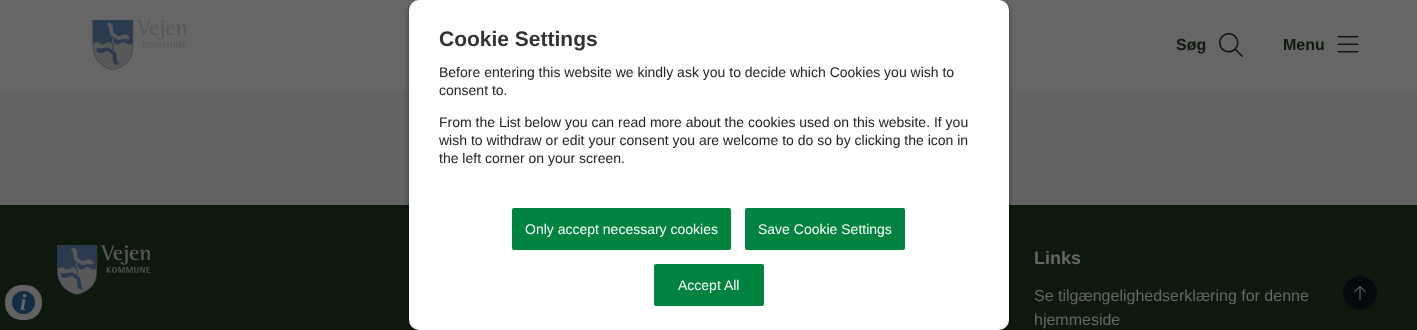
<svg xmlns="http://www.w3.org/2000/svg" width="1417" height="330" viewBox="0 0 1417 330">
  <defs>
    <filter id="blur1" x="-50%" y="-200%" width="200%" height="500%"><feGaussianBlur stdDeviation="2.5"/></filter>
  </defs>
  <rect width="100%" height="100%" fill="#616462"/>
  <rect x="0" y="205" width="1417" height="125" fill="#0e190d"/>
  <rect x="5.5" y="285.5" width="36" height="34" rx="15.5" fill="#626262" stroke="#616161"/>
  <circle cx="23.5" cy="302.5" r="11.5" fill="#122e44"/>
  <text x="20" y="310" font-family="Liberation Serif" font-size="23" font-weight="bold" font-style="italic" fill="#666666">i</text>
  <rect x="0" y="0" width="1417" height="90" fill="#666666"/>
  <rect x="409" y="2" width="600" height="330" rx="10" fill="#000000" fill-opacity="0.46" filter="url(#blur1)"/>
  <rect x="409" y="0" width="600" height="330" rx="10" fill="#ffffff"/>
  <text x="439" y="46" font-family="Liberation Sans" font-size="21" font-weight="bold" fill="#333333">Cookie Settings</text>
  <text x="439" y="77" font-family="Liberation Sans" font-size="14" fill="#222222">Before entering this website we kindly ask you to decide which Cookies you wish to</text>
  <text x="439" y="95" font-family="Liberation Sans" font-size="14" fill="#222222">consent to.</text>
  <text x="439" y="127" font-family="Liberation Sans" font-size="14" fill="#222222">From the List below you can read more about the cookies used on this website. If you</text>
  <text x="439" y="145" font-family="Liberation Sans" font-size="14" fill="#222222">wish to withdraw or edit your consent you are welcome to do so by clicking the icon in</text>
  <text x="439" y="163" font-family="Liberation Sans" font-size="14" fill="#222222">the left corner on your screen.</text>
  <rect x="512" y="208" width="219" height="42" rx="2" fill="#00833e"/>
  <text x="525" y="234" font-family="Liberation Sans" font-size="14" fill="#ffffff">Only accept necessary cookies</text>
  <rect x="745" y="208" width="160" height="42" rx="2" fill="#00833e"/>
  <text x="758" y="234" font-family="Liberation Sans" font-size="14" fill="#ffffff">Save Cookie Settings</text>
  <rect x="654" y="264" width="110" height="42" rx="2" fill="#00833e"/>
  <text x="678" y="290" font-family="Liberation Sans" font-size="14" fill="#ffffff">Accept All</text>
  <image x="92" y="20" width="95" height="50" href="img1.png"/>
  <text x="1176" y="50" font-family="Liberation Sans" font-size="16" font-weight="bold" fill="#0e190d">Søg</text>
  <image x="1219" y="33" width="24" height="24" href="img2.png"/>
  <text x="1283" y="50" font-family="Liberation Sans" font-size="16" font-weight="bold" fill="#0e190d">Menu</text>
  <image x="1337" y="36" width="22" height="17" href="img3.png"/>
  <image x="57" y="245" width="93" height="50" href="img4.png"/>
  <text x="1034" y="264" font-family="Liberation Sans" font-size="18" font-weight="bold" fill="#666666">Links</text>
  <text x="1034" y="301" font-family="Liberation Sans" font-size="16" fill="#666666">Se tilgængelighedserklæring for denne</text>
  <text x="1034" y="325" font-family="Liberation Sans" font-size="16" fill="#666666">hjemmeside</text>
  <circle cx="1360" cy="293" r="16.5" fill="#060a0e" stroke="#060a0e"/>
  <image x="1354" y="286" width="12" height="14" href="img5.png"/>
</svg>
